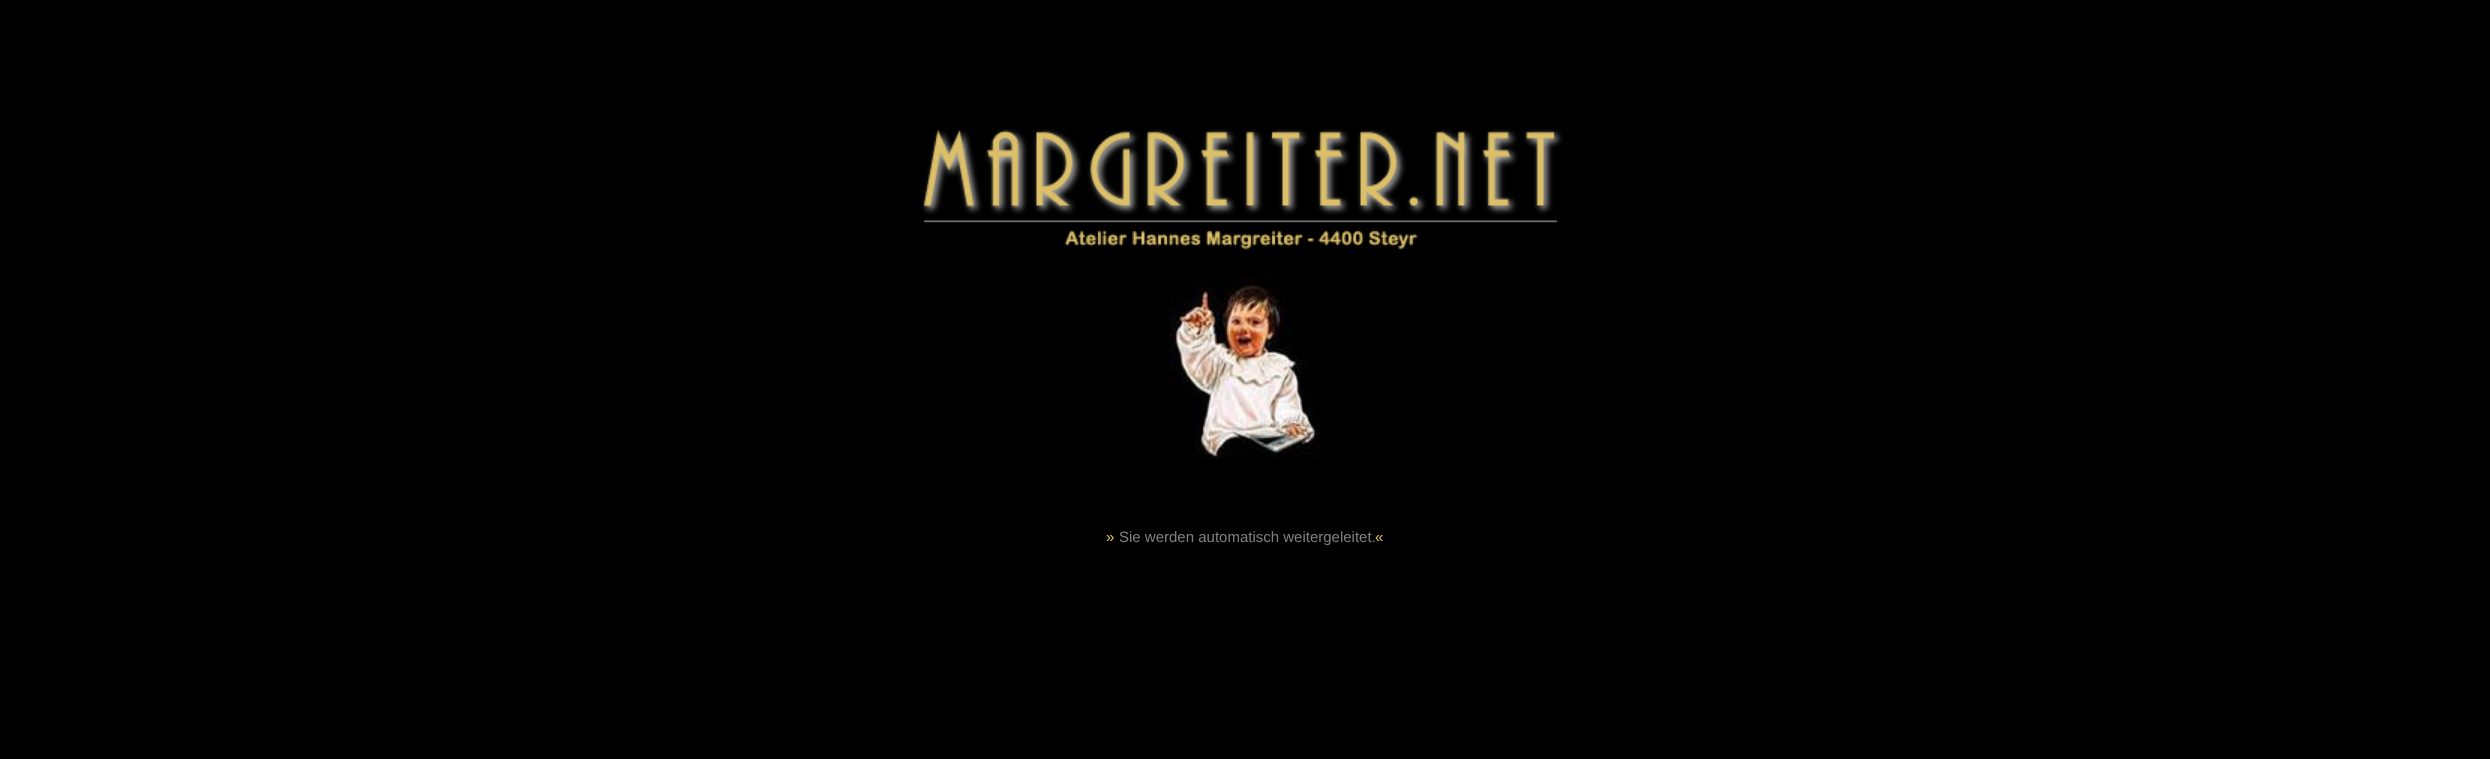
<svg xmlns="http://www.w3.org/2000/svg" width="2490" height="759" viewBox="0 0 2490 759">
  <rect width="100%" height="100%" fill="#000000"/>
  <image x="921" y="129" width="642" height="121" href="img1.png"/>
  <image x="1170" y="274" width="150" height="185" href="img2.png"/>
  <text x="1106" y="542" font-family="Liberation Sans" font-size="15" fill="#dbbf69">»</text>
  <text x="1119" y="542" font-family="Liberation Sans" font-size="15" fill="#808080">Sie werden automatisch weitergeleitet.</text>
  <text x="1375" y="542" font-family="Liberation Sans" font-size="15" fill="#dbbf69">«</text>
</svg>
